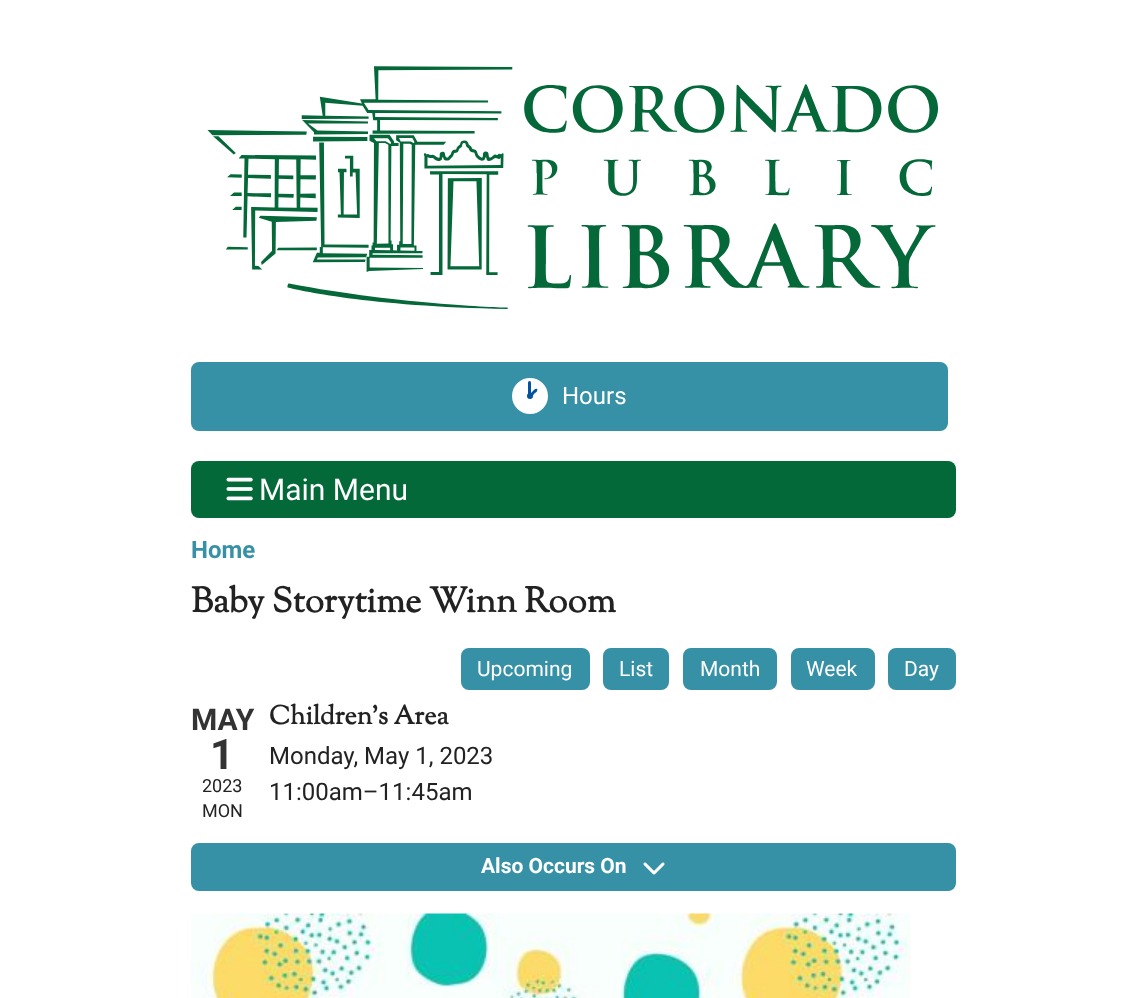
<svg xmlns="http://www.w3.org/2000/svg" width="1145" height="998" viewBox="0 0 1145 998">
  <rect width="100%" height="100%" fill="#ffffff"/>
  <image x="207" y="66" width="731" height="243" href="img1.png"/>
  <rect x="192" y="363" width="755" height="67" rx="7" fill="#3791a6" stroke="#3791a6" stroke-width="2"/>
  <circle cx="530" cy="396" r="10.5" fill="#00549f" stroke="#ffffff" stroke-width="15"/>
  <rect x="528" y="381" width="3" height="15" rx="1.5" fill="#00549f"/>
  <path d="M537 389C538.5 391 535 393 534 394C533.5 395 531 398.5 529.5 396.5C528 395 531 393 532 392C533 391 535 387.5 537 389Z" fill="#00549f"/>
  <text x="562" y="404" font-family="Roboto" font-size="24" fill="#ffffff">Hours</text>
  <rect x="191" y="461" width="765" height="57" rx="8" fill="#046939"/>
  <image x="226" y="477" width="27" height="24" href="img2.png"/>
  <text x="259" y="500" font-family="Roboto" font-size="30" fill="#ffffff">Main Menu</text>
  <text x="191" y="558" font-family="Roboto" font-size="24" font-weight="bold" fill="#3791a6">Home</text>
  <text x="191" y="612" font-family="Sorts Mill Goudy" font-size="35" font-weight="bold" fill="#222222">Baby Storytime Winn Room</text>
  <rect x="462" y="649" width="127" height="40" rx="7" fill="#3791a6" stroke="#3791a6" stroke-width="2"/>
  <text x="477" y="676" font-family="Roboto" font-size="21" fill="#ffffff">Upcoming</text>
  <rect x="604" y="649" width="64" height="40" rx="7" fill="#3791a6" stroke="#3791a6" stroke-width="2"/>
  <text x="619" y="676" font-family="Roboto" font-size="21" fill="#ffffff">List</text>
  <rect x="684" y="649" width="92" height="40" rx="7" fill="#3791a6" stroke="#3791a6" stroke-width="2"/>
  <text x="700" y="676" font-family="Roboto" font-size="21" fill="#ffffff">Month</text>
  <rect x="792" y="649" width="82" height="40" rx="7" fill="#3791a6" stroke="#3791a6" stroke-width="2"/>
  <text x="806" y="676" font-family="Roboto" font-size="21" fill="#ffffff">Week</text>
  <rect x="889" y="649" width="66" height="40" rx="7" fill="#3791a6" stroke="#3791a6" stroke-width="2"/>
  <text x="904" y="676" font-family="Roboto" font-size="21" fill="#ffffff">Day</text>
  <text x="191" y="730" font-family="Roboto" font-size="30" font-weight="bold" fill="#333333">MAY</text>
  <text x="210" y="769" font-family="Roboto" font-size="42" font-weight="bold" fill="#333333">1</text>
  <text x="202" y="792" font-family="Roboto" font-size="18" fill="#222222">2023</text>
  <text x="202" y="817" font-family="Roboto" font-size="18" fill="#222222">MON</text>
  <text x="269" y="724" font-family="Sorts Mill Goudy" font-size="26.25" font-weight="bold" fill="#222222">Children’s Area</text>
  <text x="269" y="764" font-family="Roboto" font-size="24" fill="#222222">Monday, May 1, 2023</text>
  <text x="269" y="800" font-family="Roboto" font-size="24" fill="#222222">11:00am–11:45am</text>
  <rect x="192" y="844" width="763" height="46" rx="7" fill="#3791a6" stroke="#3791a6" stroke-width="2"/>
  <text x="481" y="873" font-family="Roboto" font-size="21" font-weight="bold" fill="#ffffff">Also Occurs On</text>
  <image x="643" y="862" width="22" height="13" href="img3.png"/>
  <image x="191" y="913" width="720" height="85" href="img4.png"/>
</svg>
